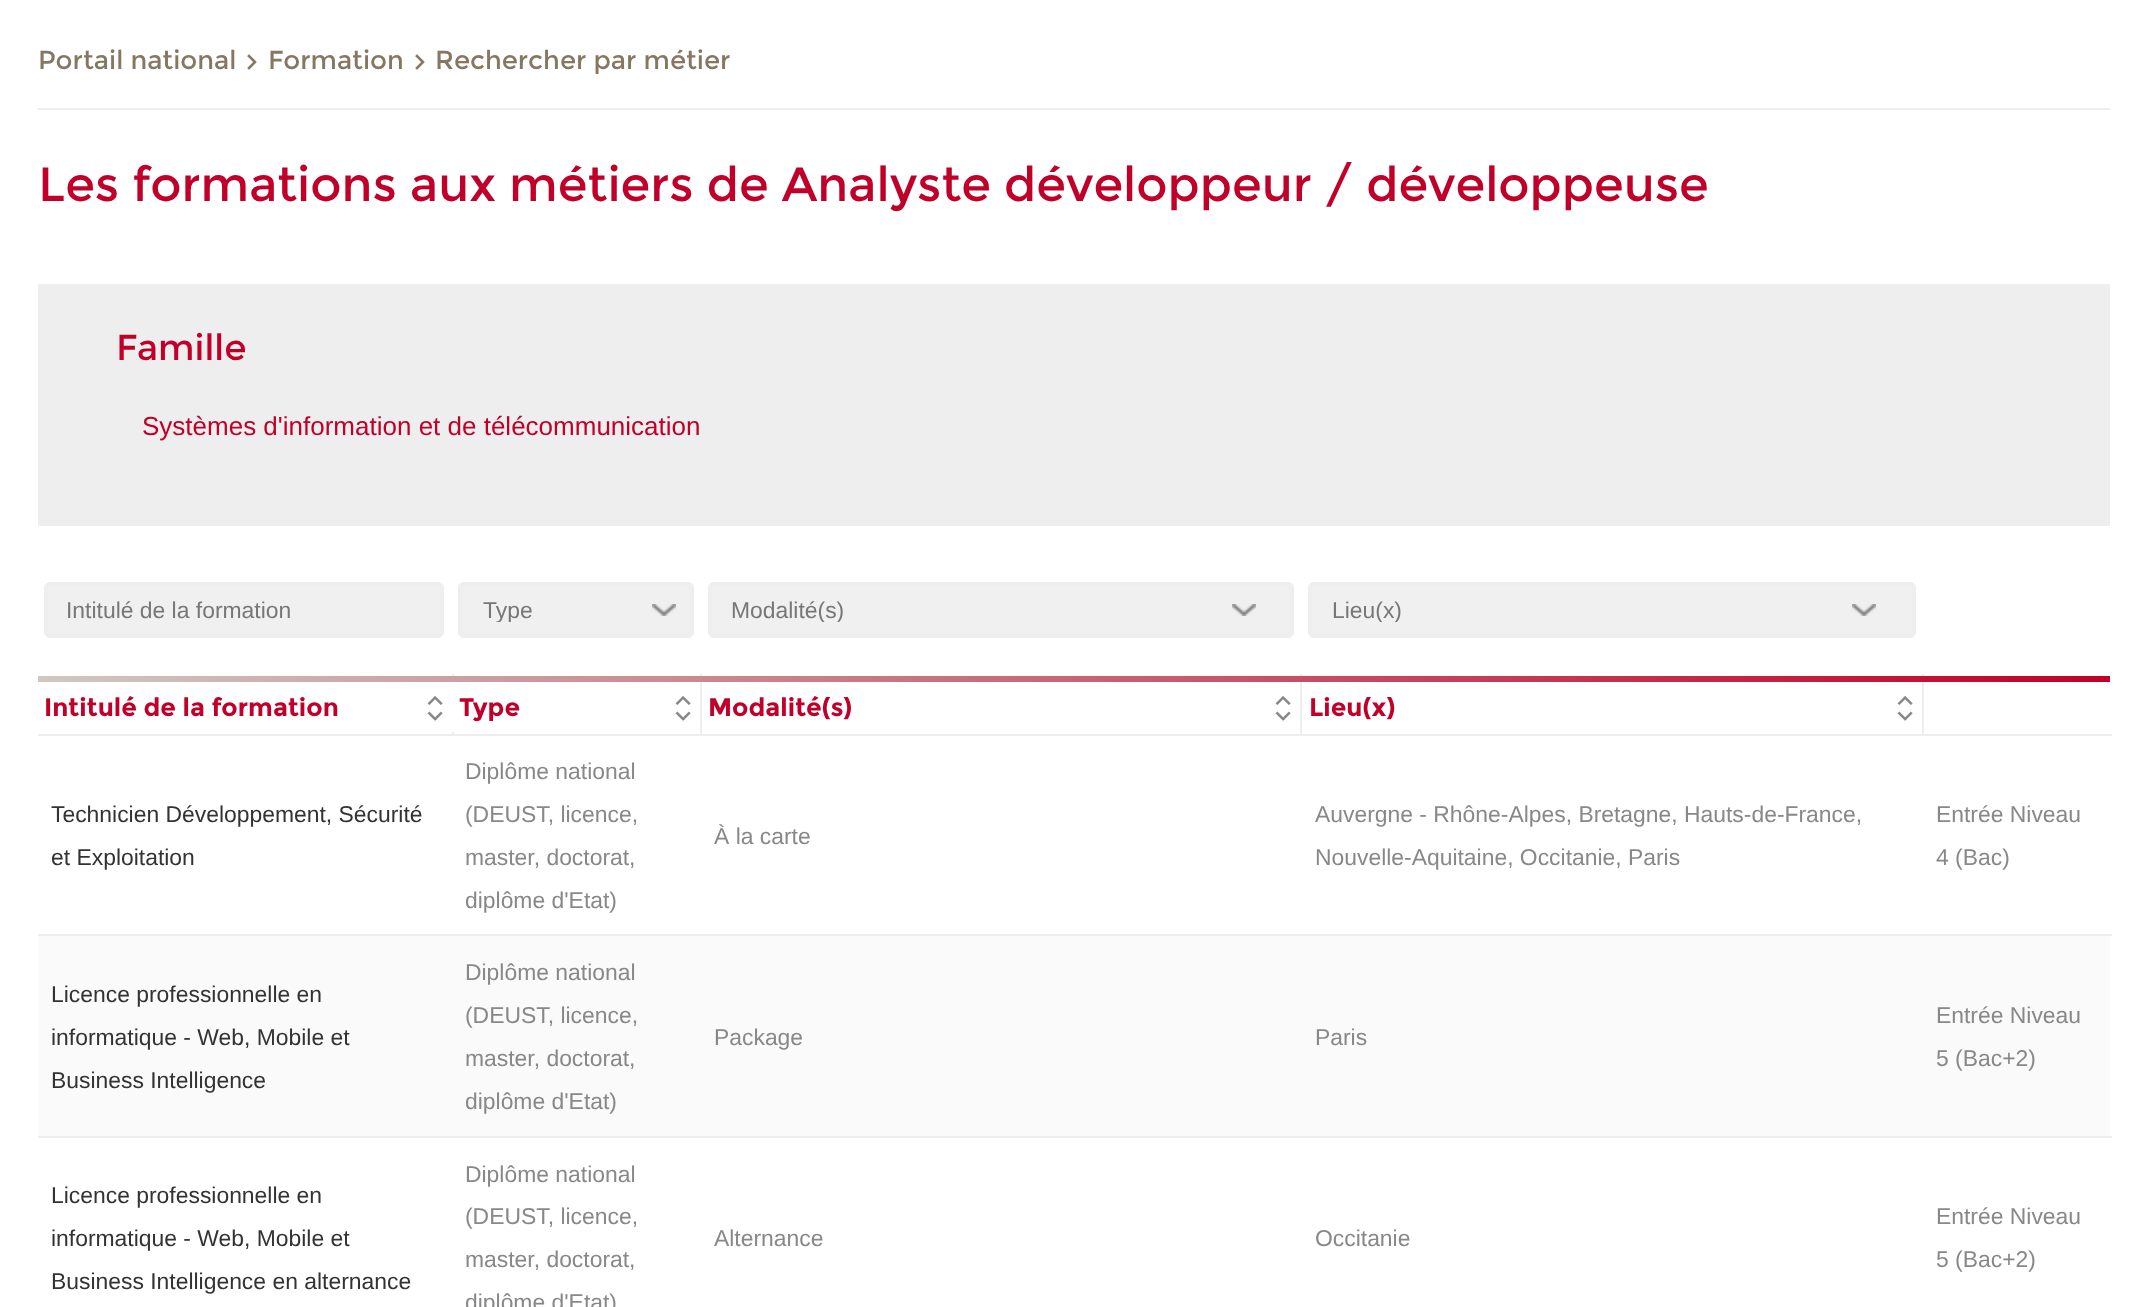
<svg xmlns="http://www.w3.org/2000/svg" width="2147" height="1307" viewBox="0 0 2147 1307">
  <defs>
    <clipPath id="clip1"><rect x="480" y="598" width="154" height="24"/></clipPath>
    <clipPath id="clip2"><rect x="730" y="598" width="506" height="24"/></clipPath>
    <clipPath id="clip3"><rect x="1330" y="598" width="526" height="24"/></clipPath>
    <linearGradient id="g1" gradientUnits="userSpaceOnUse" x1="38" y1="679" x2="2110" y2="679"><stop offset="0" stop-color="#cfc8c0"/><stop offset="1" stop-color="#c1002a"/></linearGradient>
  </defs>
  <rect width="100%" height="100%" fill="#ffffff"/>
  <rect x="38" y="108" width="2072" height="2" fill="#eeeeee"/>
  <text x="38" y="69" font-family="Montserrat" font-size="26" fill="#857761">Portail national</text>
  <image x="247" y="54" width="10" height="16" href="img1.png"/>
  <text x="268" y="69" font-family="Montserrat" font-size="26" fill="#857761">Formation</text>
  <image x="415" y="54" width="10" height="16" href="img1.png"/>
  <text x="435" y="69" font-family="Montserrat" font-size="26" fill="#857761">Rechercher par métier</text>
  <text x="38" y="201" font-family="Montserrat" font-size="48" fill="#c1002a">Les formations aux métiers de Analyste développeur / développeuse</text>
  <rect x="38" y="284" width="2072" height="242" fill="#eeeeee"/>
  <text x="116" y="360" font-family="Montserrat" font-size="36" fill="#c1002a">Famille</text>
  <text x="142" y="435" font-family="Liberation Sans" font-size="26" fill="#c1002a">Systèmes d'information et de télécommunication</text>
  <rect x="46" y="584" width="396" height="52" rx="4" fill="#f0f0f0" stroke="#eeeeee" stroke-width="4"/>
  <text x="66" y="618" font-family="Liberation Sans" font-size="22.9" fill="#777777">Intitulé de la formation</text>
  <rect x="458" y="582" width="236" height="56" rx="6" fill="#f0f0f0"/>
  <image x="652" y="604" width="24" height="12" href="img2.png"/>
  <rect x="460" y="584" width="232" height="52" rx="4" fill="none" stroke="#eeeeee" stroke-width="4"/>
  <g clip-path="url(#clip1)">
    <text x="483" y="618" font-family="Liberation Sans" font-size="22.9" fill="#777777">Type</text>
  </g>
  <rect x="708" y="582" width="586" height="56" rx="6" fill="#f0f0f0"/>
  <image x="1232" y="604" width="24" height="12" href="img2.png"/>
  <rect x="710" y="584" width="582" height="52" rx="4" fill="none" stroke="#eeeeee" stroke-width="4"/>
  <g clip-path="url(#clip2)">
    <text x="731" y="618" font-family="Liberation Sans" font-size="22.9" fill="#777777">Modalité(s)</text>
  </g>
  <rect x="1308" y="582" width="608" height="56" rx="6" fill="#f0f0f0"/>
  <image x="1852" y="604" width="24" height="12" href="img2.png"/>
  <rect x="1310" y="584" width="604" height="52" rx="4" fill="none" stroke="#eeeeee" stroke-width="4"/>
  <g clip-path="url(#clip3)">
    <text x="1332" y="618" font-family="Liberation Sans" font-size="22.9" fill="#777777">Lieu(x)</text>
  </g>
  <rect x="1922" y="734" width="190" height="2" fill="#eeeeee"/>
  <rect x="1922" y="674" width="2" height="62" fill="#eeeeee"/>
  <rect x="1300" y="734" width="624" height="2" fill="#eeeeee"/>
  <rect x="1300" y="674" width="2" height="62" fill="#eeeeee"/>
  <rect x="700" y="734" width="602" height="2" fill="#eeeeee"/>
  <rect x="700" y="674" width="2" height="62" fill="#eeeeee"/>
  <rect x="452" y="734" width="250" height="2" fill="#eeeeee"/>
  <rect x="452" y="674" width="2" height="62" fill="#eeeeee"/>
  <rect x="38" y="676" width="2072" height="6" fill="url(#g1)"/>
  <rect x="38" y="734" width="416" height="2" fill="#eeeeee"/>
  <text x="44" y="716" font-family="Montserrat" font-size="25.25" font-weight="bold" fill="#c1002a">Intitulé de la formation</text>
  <image x="427" y="695" width="16" height="10" href="img3.png"/>
  <image x="427" y="711" width="16" height="10" href="img4.png"/>
  <rect x="452" y="682" width="2" height="50" fill="#ffffff"/>
  <text x="459" y="716" font-family="Montserrat" font-size="25.25" font-weight="bold" fill="#c1002a">Type</text>
  <image x="675" y="695" width="16" height="10" href="img3.png"/>
  <image x="675" y="711" width="16" height="10" href="img4.png"/>
  <text x="708" y="716" font-family="Montserrat" font-size="25.25" font-weight="bold" fill="#c1002a">Modalité(s)</text>
  <image x="1275" y="695" width="16" height="10" href="img3.png"/>
  <image x="1275" y="711" width="16" height="10" href="img4.png"/>
  <text x="1309" y="716" font-family="Montserrat" font-size="25.25" font-weight="bold" fill="#c1002a">Lieu(x)</text>
  <image x="1897" y="695" width="16" height="10" href="img3.png"/>
  <image x="1897" y="711" width="16" height="10" href="img4.png"/>
  <text x="51" y="822" font-family="Liberation Sans" font-size="22.9" fill="#333333">Technicien Développement, Sécurité</text>
  <text x="51" y="865" font-family="Liberation Sans" font-size="22.9" fill="#333333">et Exploitation</text>
  <text x="465" y="779" font-family="Liberation Sans" font-size="22.9" fill="#888888">Diplôme national</text>
  <text x="465" y="822" font-family="Liberation Sans" font-size="22.9" fill="#888888">(DEUST, licence,</text>
  <text x="465" y="865" font-family="Liberation Sans" font-size="22.9" fill="#888888">master, doctorat,</text>
  <text x="465" y="908" font-family="Liberation Sans" font-size="22.9" fill="#888888">diplôme d'Etat)</text>
  <text x="714" y="844" font-family="Liberation Sans" font-size="22.9" fill="#888888">À la carte</text>
  <text x="1315" y="822" font-family="Liberation Sans" font-size="22.9" fill="#888888">Auvergne - Rhône-Alpes, Bretagne, Hauts-de-France,</text>
  <text x="1315" y="865" font-family="Liberation Sans" font-size="22.9" fill="#888888">Nouvelle-Aquitaine, Occitanie, Paris</text>
  <rect x="38" y="934" width="2074" height="2" fill="#eeeeee"/>
  <text x="1936" y="822" font-family="Liberation Sans" font-size="22.9" fill="#888888">Entrée Niveau</text>
  <text x="1936" y="865" font-family="Liberation Sans" font-size="22.9" fill="#888888">4 (Bac)</text>
  <rect x="38" y="936" width="2072" height="200" fill="#fafafa"/>
  <text x="51" y="1002" font-family="Liberation Sans" font-size="22.9" fill="#333333">Licence professionnelle en</text>
  <text x="51" y="1045" font-family="Liberation Sans" font-size="22.9" fill="#333333">informatique - Web, Mobile et</text>
  <text x="51" y="1088" font-family="Liberation Sans" font-size="22.9" fill="#333333">Business Intelligence</text>
  <text x="465" y="980" font-family="Liberation Sans" font-size="22.9" fill="#888888">Diplôme national</text>
  <text x="465" y="1023" font-family="Liberation Sans" font-size="22.9" fill="#888888">(DEUST, licence,</text>
  <text x="465" y="1066" font-family="Liberation Sans" font-size="22.9" fill="#888888">master, doctorat,</text>
  <text x="465" y="1109" font-family="Liberation Sans" font-size="22.9" fill="#888888">diplôme d'Etat)</text>
  <text x="714" y="1045" font-family="Liberation Sans" font-size="22.9" fill="#888888">Package</text>
  <text x="1315" y="1045" font-family="Liberation Sans" font-size="22.9" fill="#888888">Paris</text>
  <rect x="38" y="1136" width="2074" height="2" fill="#eeeeee"/>
  <text x="1936" y="1023" font-family="Liberation Sans" font-size="22.9" fill="#888888">Entrée Niveau</text>
  <text x="1936" y="1066" font-family="Liberation Sans" font-size="22.9" fill="#888888">5 (Bac+2)</text>
  <text x="51" y="1203" font-family="Liberation Sans" font-size="22.9" fill="#333333">Licence professionnelle en</text>
  <text x="51" y="1246" font-family="Liberation Sans" font-size="22.9" fill="#333333">informatique - Web, Mobile et</text>
  <text x="51" y="1289" font-family="Liberation Sans" font-size="22.9" fill="#333333">Business Intelligence en alternance</text>
  <text x="465" y="1182" font-family="Liberation Sans" font-size="22.9" fill="#888888">Diplôme national</text>
  <text x="465" y="1224" font-family="Liberation Sans" font-size="22.9" fill="#888888">(DEUST, licence,</text>
  <text x="465" y="1267" font-family="Liberation Sans" font-size="22.9" fill="#888888">master, doctorat,</text>
  <text x="465" y="1310" font-family="Liberation Sans" font-size="22.9" fill="#888888">diplôme d'Etat)</text>
  <text x="714" y="1246" font-family="Liberation Sans" font-size="22.9" fill="#888888">Alternance</text>
  <text x="1315" y="1246" font-family="Liberation Sans" font-size="22.9" fill="#888888">Occitanie</text>
  <text x="1936" y="1224" font-family="Liberation Sans" font-size="22.9" fill="#888888">Entrée Niveau</text>
  <text x="1936" y="1267" font-family="Liberation Sans" font-size="22.9" fill="#888888">5 (Bac+2)</text>
</svg>
